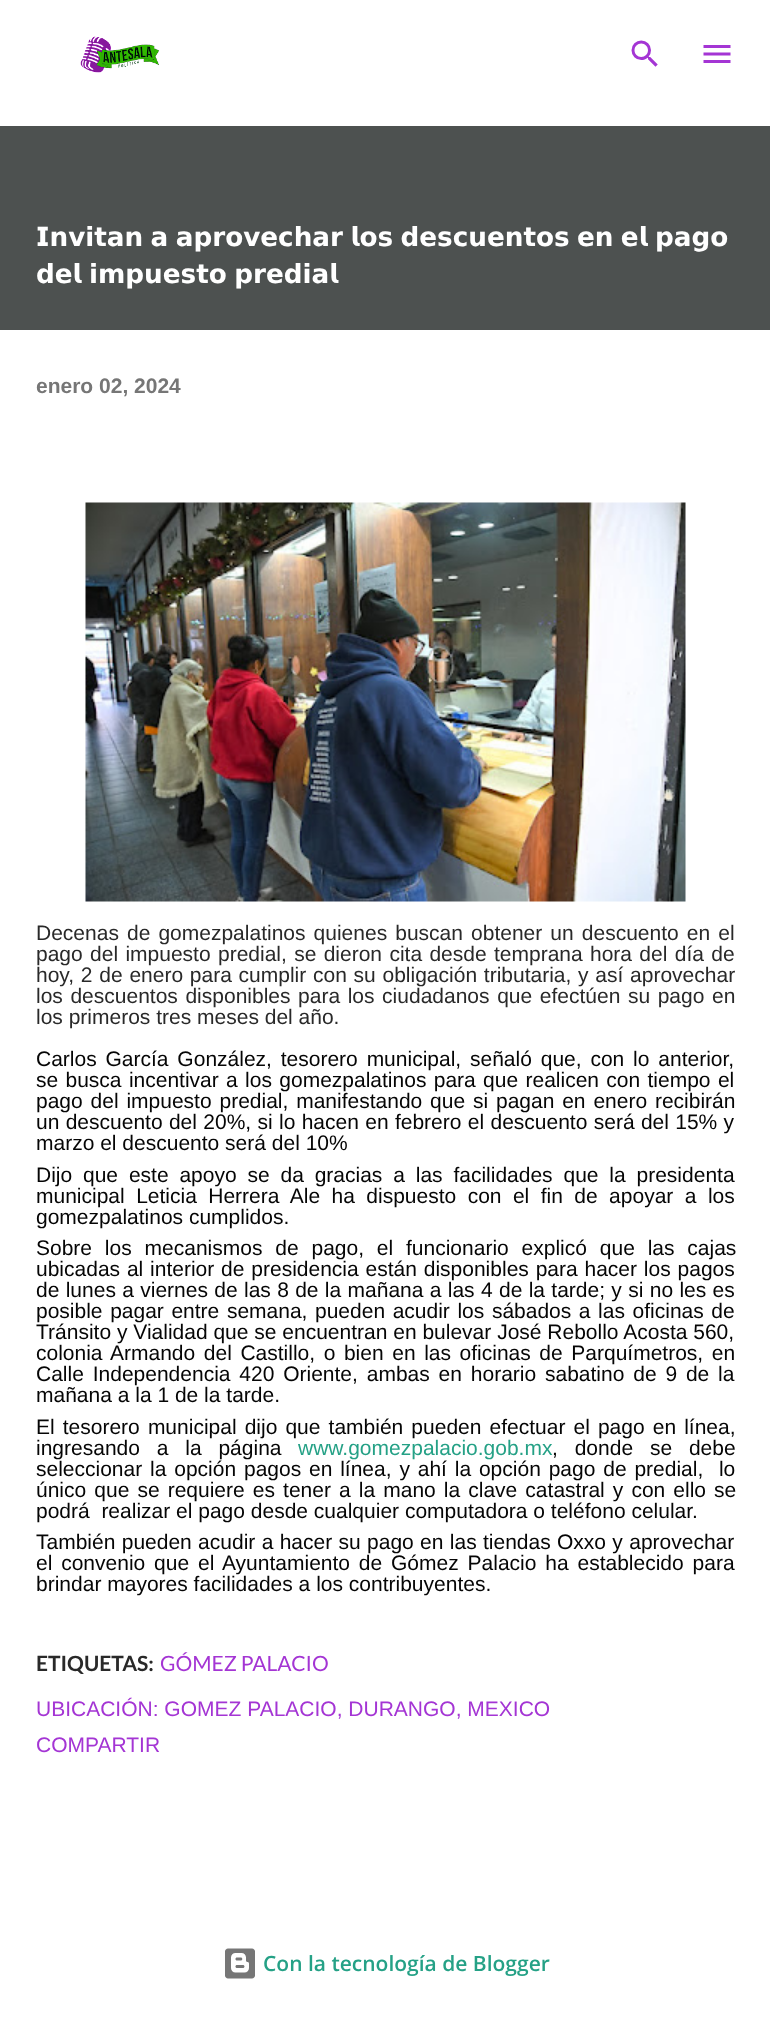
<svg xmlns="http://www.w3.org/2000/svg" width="770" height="2023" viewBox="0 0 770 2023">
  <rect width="100%" height="100%" fill="#ffffff"/>
  <image x="80" y="36" width="79" height="37" href="img1.png"/>
  <image x="631" y="40" width="27" height="27" href="img2.png"/>
  <image x="703" y="45" width="28" height="18" href="img3.png"/>
  <rect x="0" y="126" width="770" height="204" fill="#4d5150"/>
  <text x="36" y="246" word-spacing="-1.75" font-family="DejaVu Sans" font-size="26.25" font-weight="bold" fill="#ffffff">𝗜𝗻𝘃𝗶𝘁𝗮𝗻 𝗮 𝗮𝗽𝗿𝗼𝘃𝗲𝗰𝗵𝗮𝗿 𝗹𝗼𝘀 𝗱𝗲𝘀𝗰𝘂𝗲𝗻𝘁𝗼𝘀 𝗲𝗻 𝗲𝗹 𝗽𝗮𝗴𝗼</text>
  <text x="36" y="283" word-spacing="-1.75" font-family="DejaVu Sans" font-size="26.25" font-weight="bold" fill="#ffffff">𝗱𝗲𝗹 𝗶𝗺𝗽𝘂𝗲𝘀𝘁𝗼 𝗽𝗿𝗲𝗱𝗶𝗮𝗹</text>
  <text x="36" y="393" font-family="Liberation Sans" font-size="21" font-weight="bold" fill="#767676">enero 02, 2024</text>
  <image x="85" y="502" width="601" height="400" href="img4.png"/>
  <text x="36" y="940" word-spacing="2.25" font-family="Liberation Sans" font-size="21" fill="#292929">Decenas de gomezpalatinos quienes buscan obtener un descuento en el</text>
  <text x="36" y="961" word-spacing="1.5" font-family="Liberation Sans" font-size="21" fill="#292929">pago del impuesto predial, se dieron cita desde temprana hora del día de</text>
  <text x="36" y="982" word-spacing="0.9" font-family="Liberation Sans" font-size="21" fill="#292929">hoy, 2 de enero para cumplir con su obligación tributaria, y así aprovechar</text>
  <text x="36" y="1003" word-spacing="1.75" font-family="Liberation Sans" font-size="21" fill="#292929">los descuentos disponibles para los ciudadanos que efectúen su pago en</text>
  <text x="36" y="1024" font-family="Liberation Sans" font-size="21" fill="#292929">los primeros tres meses del año.</text>
  <text x="36" y="1066" word-spacing="3" font-family="Liberation Sans" font-size="21" fill="#050505">Carlos García González, tesorero municipal, señaló que, con lo anterior,</text>
  <text x="36" y="1087" word-spacing="1.5" font-family="Liberation Sans" font-size="21" fill="#050505">se busca incentivar a los gomezpalatinos para que realicen con tiempo el</text>
  <text x="36" y="1108" word-spacing="2" font-family="Liberation Sans" font-size="21" fill="#050505">pago del impuesto predial, manifestando que si pagan en enero recibirán</text>
  <text x="36" y="1129" word-spacing="0.5" font-family="Liberation Sans" font-size="21" fill="#050505">un descuento del 20%, si lo hacen en febrero el descuento será del 15% y</text>
  <text x="36" y="1150" font-family="Liberation Sans" font-size="21" fill="#050505">marzo el descuento será del 10%</text>
  <text x="36" y="1182" word-spacing="5" font-family="Liberation Sans" font-size="21" fill="#050505">Dijo que este apoyo se da gracias a las facilidades que la presidenta</text>
  <text x="36" y="1203" word-spacing="5.6" font-family="Liberation Sans" font-size="21" fill="#050505">municipal Leticia Herrera Ale ha dispuesto con el fin de apoyar a los</text>
  <text x="36" y="1224" font-family="Liberation Sans" font-size="21" fill="#050505">gomezpalatinos cumplidos.</text>
  <text x="36" y="1255" word-spacing="7" font-family="Liberation Sans" font-size="21" fill="#050505">Sobre los mecanismos de pago, el funcionario explicó que las cajas</text>
  <text x="36" y="1276" word-spacing="1" font-family="Liberation Sans" font-size="21" fill="#050505">ubicadas al interior de presidencia están disponibles para hacer los pagos</text>
  <text x="36" y="1297" word-spacing="0.5" font-family="Liberation Sans" font-size="21" fill="#050505">de lunes a viernes de las 8 de la mañana a las 4 de la tarde; y si no les es</text>
  <text x="36" y="1318" word-spacing="1.75" font-family="Liberation Sans" font-size="21" fill="#050505">posible pagar entre semana, pueden acudir los sábados a las oficinas de</text>
  <text x="36" y="1339" font-family="Liberation Sans" font-size="21" fill="#050505">Tránsito y Vialidad que se encuentran en bulevar José Rebollo Acosta 560,</text>
  <text x="36" y="1360" word-spacing="2.75" font-family="Liberation Sans" font-size="21" fill="#050505">colonia Armando del Castillo, o bien en las oficinas de Parquímetros, en</text>
  <text x="36" y="1381" word-spacing="3" font-family="Liberation Sans" font-size="21" fill="#050505">Calle Independencia 420 Oriente, ambas en horario sabatino de 9 de la</text>
  <text x="36" y="1402" font-family="Liberation Sans" font-size="21" fill="#050505">mañana a la 1 de la tarde.</text>
  <text x="36" y="1434" word-spacing="2.25" font-family="Liberation Sans" font-size="21" fill="#050505">El tesorero municipal dijo que también pueden efectuar el pago en línea,</text>
  <text x="36" y="1455" word-spacing="11" font-family="Liberation Sans" font-size="21" fill="#050505">ingresando a la página</text>
  <text x="298" y="1455" font-family="Liberation Sans" font-size="21" fill="#25a186">www.gomezpalacio.gob.mx</text>
  <text x="552" y="1455" word-spacing="11" font-family="Liberation Sans" font-size="21" fill="#050505">, donde se debe</text>
  <text x="36" y="1476" word-spacing="2" font-family="Liberation Sans" font-size="21" fill="#050505" xml:space="preserve">seleccionar la opción pagos en línea, y ahí la opción pago de predial,  lo</text>
  <text x="36" y="1497" word-spacing="2.25" font-family="Liberation Sans" font-size="21" fill="#050505">único que se requiere es tener a la mano la clave catastral y con ello se</text>
  <text x="36" y="1518" font-family="Liberation Sans" font-size="21" fill="#050505" xml:space="preserve">podrá  realizar el pago desde cualquier computadora o teléfono celular.</text>
  <text x="36" y="1549" word-spacing="0.5" font-family="Liberation Sans" font-size="21" fill="#050505">También pueden acudir a hacer su pago en las tiendas Oxxo y aprovechar</text>
  <text x="36" y="1570" word-spacing="3" font-family="Liberation Sans" font-size="21" fill="#050505">el convenio que el Ayuntamiento de Gómez Palacio ha establecido para</text>
  <text x="36" y="1591" font-family="Liberation Sans" font-size="21" fill="#050505">brindar mayores facilidades a los contribuyentes.</text>
  <text x="36" y="1671" font-family="Lato" font-size="21" font-weight="bold" fill="#292929">ETIQUETAS:</text>
  <text x="160" y="1671" font-family="Lato" font-size="21" fill="#a435d4">GÓMEZ PALACIO</text>
  <text x="36" y="1716" font-family="Liberation Sans" font-size="21" fill="#a435d4">UBICACIÓN: GOMEZ PALACIO, DURANGO, MEXICO</text>
  <text x="36" y="1752" font-family="Liberation Sans" font-size="21" fill="#a435d4">COMPARTIR</text>
  <image x="225" y="1948" width="30" height="31" href="img5.png"/>
  <text x="263" y="1971" font-family="Open Sans" font-size="21" font-weight="600" fill="#25a186">Con la tecnología de Blogger</text>
</svg>
